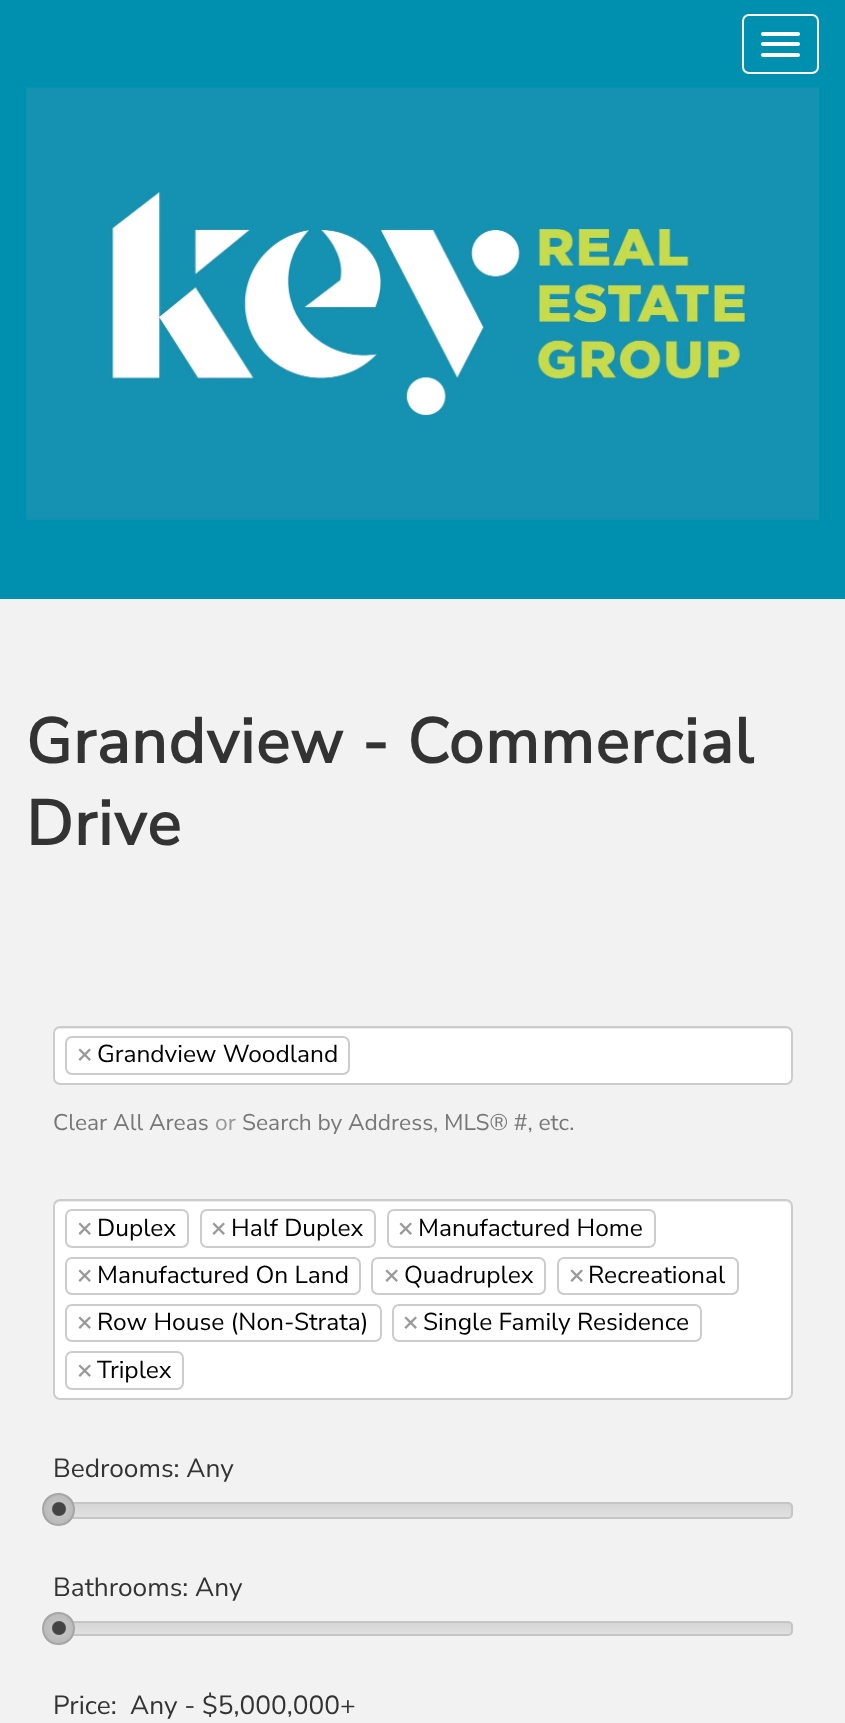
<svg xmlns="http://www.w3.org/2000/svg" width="845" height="1723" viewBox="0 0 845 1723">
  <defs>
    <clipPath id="clip1"><rect x="53" y="1502" width="740" height="17" rx="5"/></clipPath>
    <linearGradient id="g1" gradientUnits="userSpaceOnUse" x1="423" y1="1503" x2="423" y2="1517"><stop offset="0" stop-color="#d5d5d5"/><stop offset="1" stop-color="#e1e1e1"/></linearGradient>
    <clipPath id="clip2"><rect x="42" y="1493" width="33" height="33" rx="16.5"/></clipPath>
    <radialGradient id="g2" gradientUnits="userSpaceOnUse" cx="59" cy="1509" r="21"><stop offset="0" stop-color="#444444"/><stop offset="0.3" stop-color="#444444"/><stop offset="0.36" stop-color="#c2c2c2"/><stop offset="1" stop-color="#b3b3b3"/></radialGradient>
    <clipPath id="clip3"><rect x="53" y="1621" width="740" height="15" rx="5"/></clipPath>
    <linearGradient id="g3" gradientUnits="userSpaceOnUse" x1="423" y1="1622" x2="423" y2="1635"><stop offset="0" stop-color="#d5d5d5"/><stop offset="1" stop-color="#e1e1e1"/></linearGradient>
    <clipPath id="clip4"><rect x="42" y="1612" width="33" height="33" rx="16.5"/></clipPath>
    <radialGradient id="g4" gradientUnits="userSpaceOnUse" cx="59" cy="1628" r="21"><stop offset="0" stop-color="#444444"/><stop offset="0.3" stop-color="#444444"/><stop offset="0.36" stop-color="#c2c2c2"/><stop offset="1" stop-color="#b3b3b3"/></radialGradient>
  </defs>
  <rect width="100%" height="100%" fill="#0090af"/>
  <rect x="743" y="15" width="75" height="58" rx="6" fill="none" stroke="#ffffff" stroke-width="2"/>
  <rect x="761" y="32" width="39" height="4" rx="2" fill="#ffffff"/>
  <rect x="761" y="42" width="39" height="4" rx="2" fill="#ffffff"/>
  <rect x="761" y="53" width="39" height="4" rx="2" fill="#ffffff"/>
  <image x="26" y="87" width="793" height="433" href="img1.png"/>
  <rect x="0" y="599" width="845" height="1124" fill="#f2f2f2"/>
  <text x="26" y="763" font-family="Nunito Sans" font-size="63" font-weight="bold" letter-spacing="1.25" fill="#333333">Grandview - Commercial</text>
  <text x="26" y="845" font-family="Nunito Sans" font-size="63" font-weight="bold" letter-spacing="1.25" fill="#333333">Drive</text>
  <rect x="53" y="1026" width="740" height="59" rx="7" fill="#ffffff"/>
  <path d="M60 1029H786C789 1029 791 1031 791 1034V1032C791 1029 789 1027 786 1027H59C56 1027 54 1029 54 1032V1034C54 1031 57 1029 60 1029Z" fill="#ececec"/>
  <rect x="54" y="1027" width="738" height="57" rx="6" fill="none" stroke="#cccccc" stroke-width="2"/>
  <rect x="66" y="1037" width="283" height="37" rx="6" fill="none" stroke="#cccccc" stroke-width="2"/>
  <text x="77" y="1062" font-family="Nunito Sans" font-size="24.5" font-weight="bold" fill="#999999">×</text>
  <text x="97" y="1062" font-family="Nunito Sans" font-size="24.5" font-weight="200" fill="#000000">Grandview Woodland</text>
  <text x="53" y="1130" font-family="Nunito Sans" font-size="22.75" font-weight="200" fill="#777777">Clear All Areas</text>
  <text x="215" y="1130" font-family="Nunito Sans" font-size="22.75" font-weight="200" fill="#999999">or</text>
  <text x="242" y="1130" font-family="Nunito Sans" font-size="22.75" font-weight="200" fill="#777777">Search by Address, MLS® #, etc.</text>
  <rect x="53" y="1199" width="740" height="201" rx="7" fill="#ffffff"/>
  <path d="M60 1202H786C789 1202 791 1205 791 1208V1206C791 1203 789 1201 786 1201H59C56 1201 54 1203 54 1206V1208C54 1205 57 1202 60 1202Z" fill="#ececec"/>
  <rect x="54" y="1200" width="738" height="199" rx="6" fill="none" stroke="#cccccc" stroke-width="2"/>
  <rect x="66" y="1210" width="122" height="37" rx="6" fill="none" stroke="#cccccc" stroke-width="2"/>
  <text x="77" y="1236" font-family="Nunito Sans" font-size="24.5" font-weight="bold" fill="#999999">×</text>
  <text x="97" y="1236" font-family="Nunito Sans" font-size="24.5" font-weight="200" fill="#000000">Duplex</text>
  <rect x="201" y="1210" width="174" height="37" rx="6" fill="none" stroke="#cccccc" stroke-width="2"/>
  <text x="211" y="1236" font-family="Nunito Sans" font-size="24.5" font-weight="bold" fill="#999999">×</text>
  <text x="231" y="1236" font-family="Nunito Sans" font-size="24.5" font-weight="200" fill="#000000">Half Duplex</text>
  <rect x="388" y="1210" width="267" height="37" rx="6" fill="none" stroke="#cccccc" stroke-width="2"/>
  <text x="398" y="1236" font-family="Nunito Sans" font-size="24.5" font-weight="bold" fill="#999999">×</text>
  <text x="418" y="1236" font-family="Nunito Sans" font-size="24.5" font-weight="200" fill="#000000">Manufactured Home</text>
  <rect x="66" y="1258" width="294" height="36" rx="6" fill="none" stroke="#cccccc" stroke-width="2"/>
  <text x="77" y="1283" font-family="Nunito Sans" font-size="24.5" font-weight="bold" fill="#999999">×</text>
  <text x="97" y="1283" font-family="Nunito Sans" font-size="24.5" font-weight="200" fill="#000000">Manufactured On Land</text>
  <rect x="372" y="1258" width="173" height="36" rx="6" fill="none" stroke="#cccccc" stroke-width="2"/>
  <text x="384" y="1283" font-family="Nunito Sans" font-size="24.5" font-weight="bold" fill="#999999">×</text>
  <text x="404" y="1283" font-family="Nunito Sans" font-size="24.5" font-weight="200" fill="#000000">Quadruplex</text>
  <rect x="558" y="1258" width="180" height="36" rx="6" fill="none" stroke="#cccccc" stroke-width="2"/>
  <text x="569" y="1283" font-family="Nunito Sans" font-size="24.5" font-weight="bold" fill="#999999">×</text>
  <text x="588" y="1283" font-family="Nunito Sans" font-size="24.5" font-weight="200" fill="#000000">Recreational</text>
  <rect x="66" y="1305" width="315" height="36" rx="6" fill="none" stroke="#cccccc" stroke-width="2"/>
  <text x="77" y="1330" font-family="Nunito Sans" font-size="24.5" font-weight="bold" fill="#999999">×</text>
  <text x="97" y="1330" font-family="Nunito Sans" font-size="24.5" font-weight="200" fill="#000000">Row House (Non-Strata)</text>
  <rect x="393" y="1305" width="308" height="36" rx="6" fill="none" stroke="#cccccc" stroke-width="2"/>
  <text x="403" y="1330" font-family="Nunito Sans" font-size="24.5" font-weight="bold" fill="#999999">×</text>
  <text x="423" y="1330" font-family="Nunito Sans" font-size="24.5" font-weight="200" fill="#000000">Single Family Residence</text>
  <rect x="66" y="1352" width="117" height="37" rx="6" fill="none" stroke="#cccccc" stroke-width="2"/>
  <text x="77" y="1378" font-family="Nunito Sans" font-size="24.5" font-weight="bold" fill="#999999">×</text>
  <text x="97" y="1378" font-family="Nunito Sans" font-size="24.5" font-weight="200" fill="#000000">Triplex</text>
  <text x="53" y="1477" font-family="Nunito Sans" font-size="26.25" font-weight="200" fill="#333333">Bedrooms: Any</text>
  <g clip-path="url(#clip1)">
    <rect x="73" y="1503" width="720" height="14" fill="url(#g1)"/>
  </g>
  <rect x="54" y="1503" width="738" height="15" rx="4" fill="none" stroke="#c5c5c5" stroke-width="2"/>
  <g clip-path="url(#clip2)">
    <rect x="44" y="1495" width="30" height="29" fill="url(#g2)"/>
  </g>
  <circle cx="58.5" cy="1509.5" r="15.5" fill="none" stroke="#a6a6a6" stroke-width="2"/>
  <text x="53" y="1596" font-family="Nunito Sans" font-size="26.25" font-weight="200" fill="#333333">Bathrooms: Any</text>
  <g clip-path="url(#clip3)">
    <rect x="74" y="1622" width="719" height="13" fill="url(#g3)"/>
  </g>
  <rect x="54" y="1622" width="738" height="13" rx="4" fill="none" stroke="#c5c5c5" stroke-width="2"/>
  <g clip-path="url(#clip4)">
    <rect x="44" y="1614" width="30" height="29" fill="url(#g4)"/>
  </g>
  <circle cx="58.5" cy="1628.5" r="15.5" fill="none" stroke="#a6a6a6" stroke-width="2"/>
  <text x="53" y="1714" font-family="Nunito Sans" font-size="26.25" font-weight="200" fill="#333333">Price:</text>
  <text x="130" y="1714" font-family="Nunito Sans" font-size="26.25" font-weight="200" fill="#333333">Any - $5,000,000+</text>
</svg>
